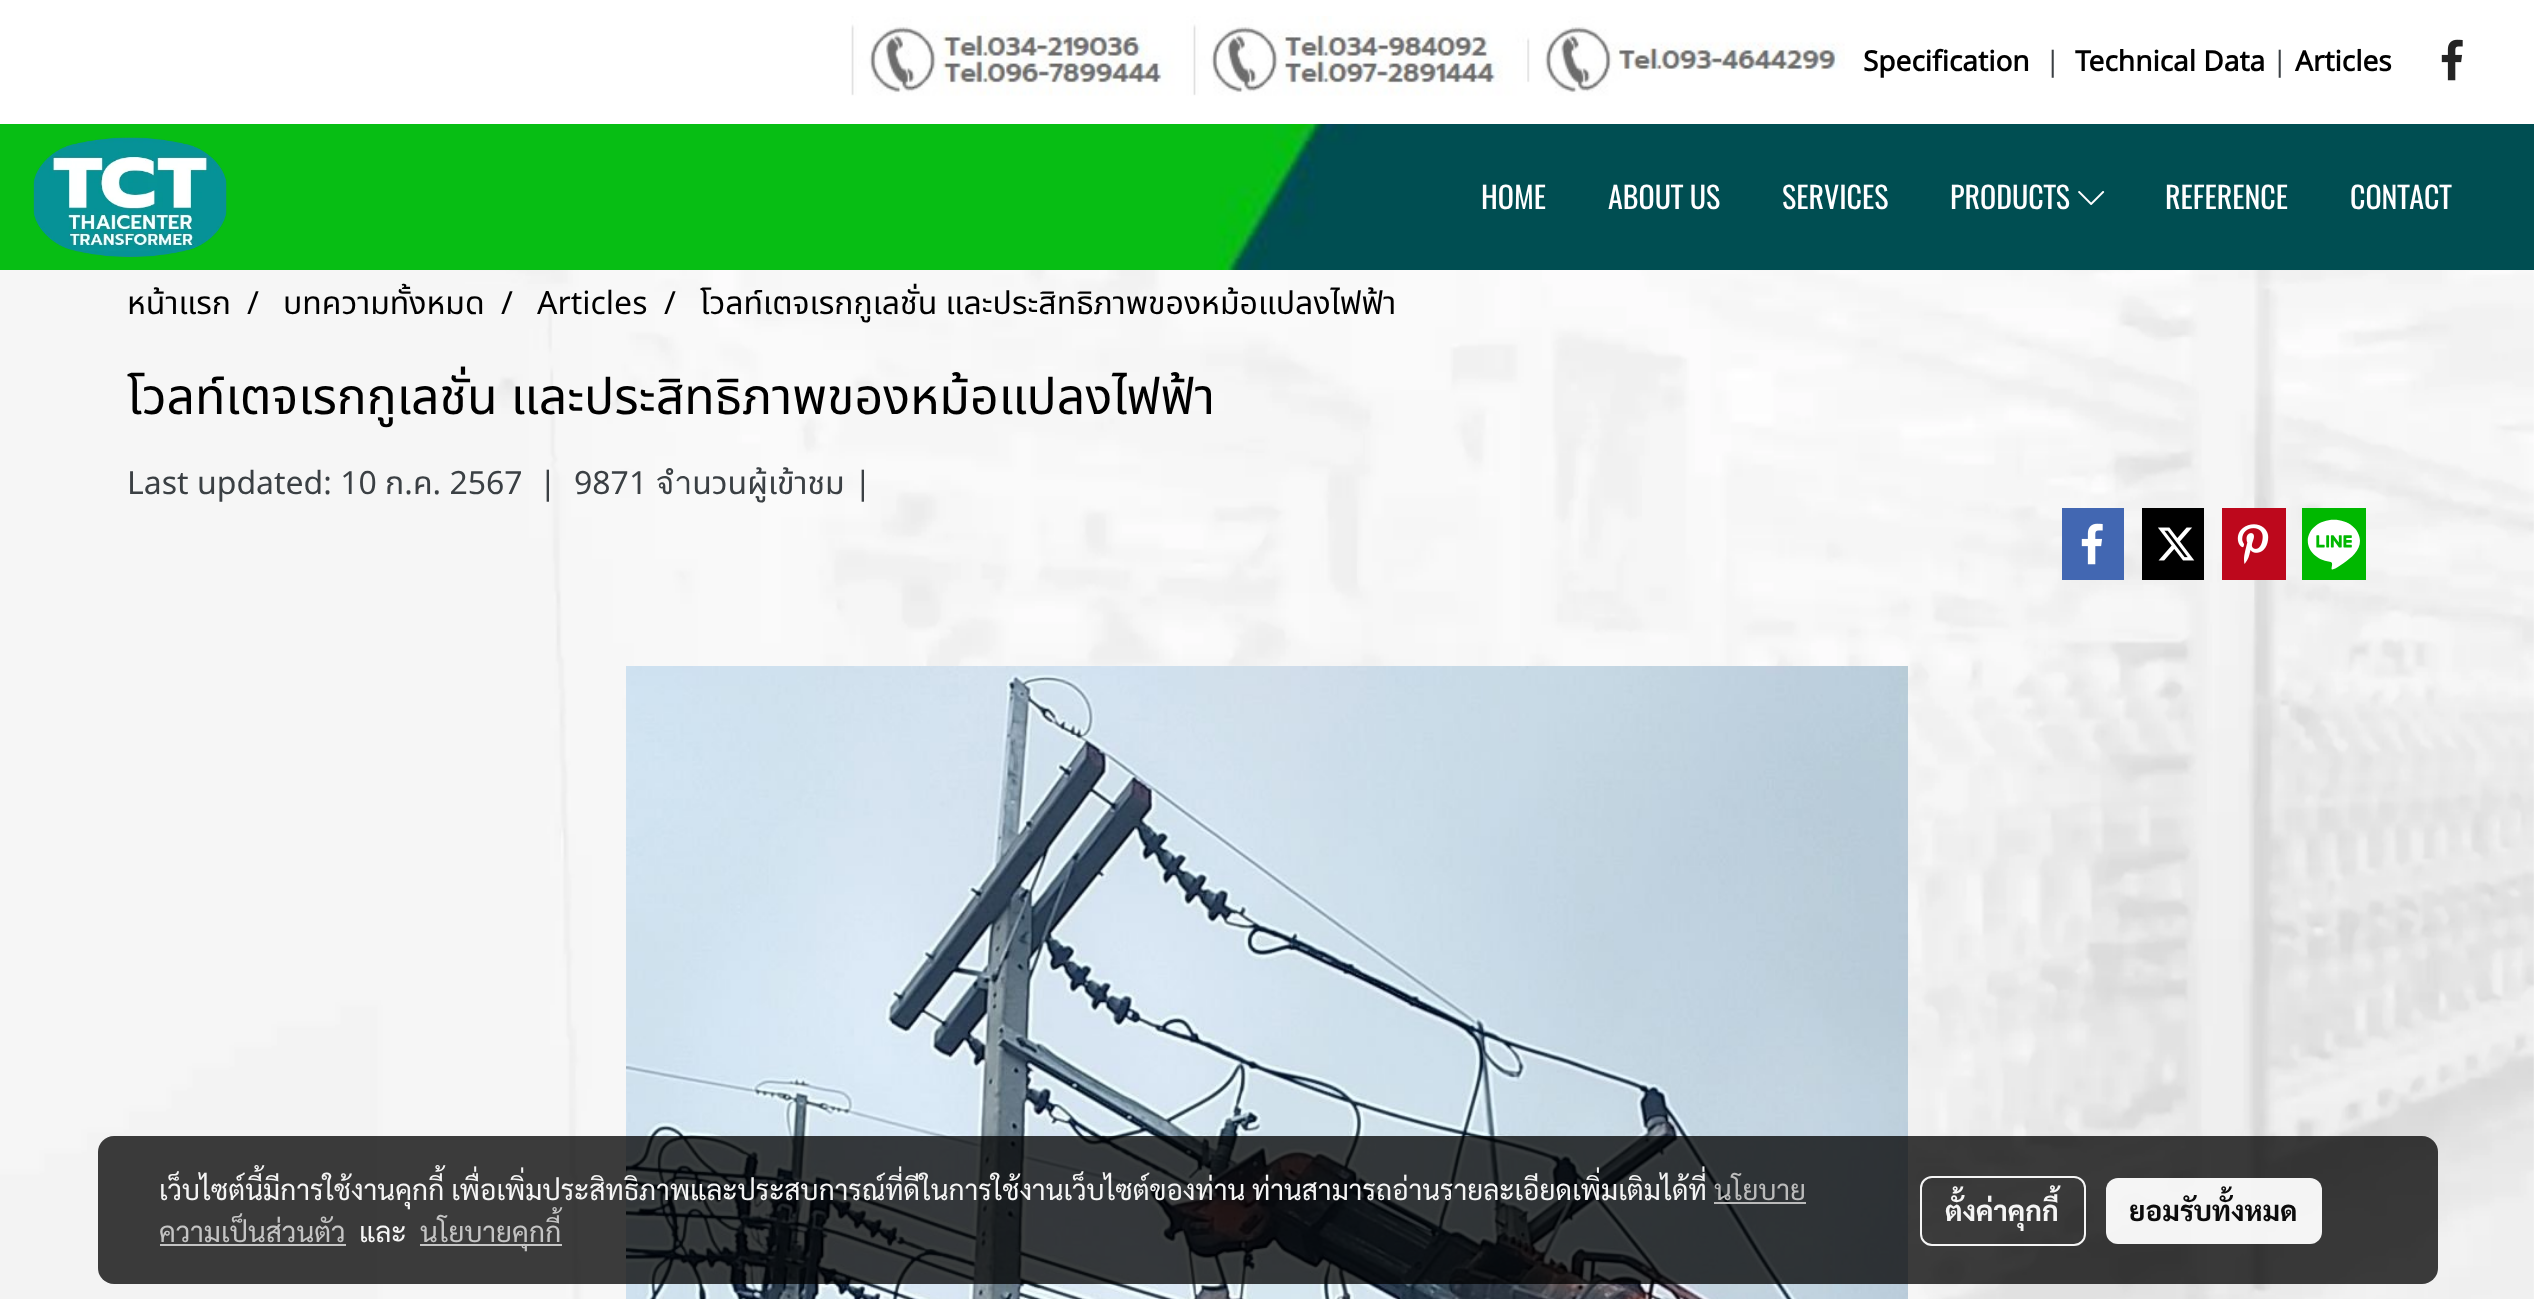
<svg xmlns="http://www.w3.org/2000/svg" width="2534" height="1299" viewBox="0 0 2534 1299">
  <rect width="100%" height="100%" fill="#ffffff"/>
  <image x="0" y="270" width="2534" height="1029" href="img1.png"/>
  <image x="0" y="124" width="2534" height="146" href="img2.png"/>
  <image x="851" y="16" width="994" height="80" href="img3.png"/>
  <text x="1863" y="71" font-family="Noto Sans Thai" font-size="28" font-weight="bold" fill="#000000">Specification</text>
  <text x="2045" y="71" font-family="Noto Sans Thai" font-size="28" fill="#3b4044">|</text>
  <text x="2075" y="71" font-family="Noto Sans Thai" font-size="28" font-weight="bold" fill="#000000">Technical Data</text>
  <text x="2272" y="71" font-family="Noto Sans Thai" font-size="28" fill="#3b4044">|</text>
  <text x="2295" y="71" font-family="Noto Sans Thai" font-size="28" font-weight="bold" fill="#000000">Articles</text>
  <image x="2441" y="39" width="22" height="42" href="img4.png"/>
  <image x="33" y="137" width="194" height="120" href="img5.png"/>
  <text x="1481" y="209" font-family="Oswald" font-size="30" fill="#fffeff">HOME</text>
  <text x="1608" y="209" font-family="Oswald" font-size="30" fill="#fffeff">ABOUT US</text>
  <text x="1782" y="209" font-family="Oswald" font-size="30" fill="#fffeff">SERVICES</text>
  <text x="1950" y="209" font-family="Oswald" font-size="30" fill="#fffeff">PRODUCTS</text>
  <image x="2078" y="191" width="27" height="14" href="img6.png"/>
  <text x="2165" y="209" font-family="Oswald" font-size="30" fill="#fffeff">REFERENCE</text>
  <text x="2350" y="209" font-family="Oswald" font-size="30" fill="#fffeff">CONTACT</text>
  <text x="127" y="314" font-family="Noto Sans Thai" font-size="32" fill="#000000">หน้าแรก</text>
  <text x="247" y="314" font-family="Noto Sans Thai" font-size="32" fill="#000000">/</text>
  <text x="283" y="314" font-family="Noto Sans Thai" font-size="32" fill="#000000">บทความทั้งหมด</text>
  <text x="501" y="314" font-family="Noto Sans Thai" font-size="32" fill="#000000">/</text>
  <text x="537" y="314" font-family="Noto Sans Thai" font-size="32" fill="#000000">Articles</text>
  <text x="664" y="314" font-family="Noto Sans Thai" font-size="32" fill="#000000">/</text>
  <text x="700" y="314" font-family="Noto Sans Thai" font-size="32" fill="#000000">โวลท์เตจเรกกูเลชั่น และประสิทธิภาพของหม้อแปลงไฟฟ้า</text>
  <text x="127" y="414" font-family="Noto Sans Thai" font-size="50" fill="#000000">โวลท์เตจเรกกูเลชั่น และประสิทธิภาพของหม้อแปลงไฟฟ้า</text>
  <text x="127" y="494" font-family="Noto Sans Thai" font-size="32" fill="#3b4044">Last updated: 10 ก.ค. 2567</text>
  <text x="539" y="494" font-family="Noto Sans Thai" font-size="32" fill="#3b4044">|</text>
  <text x="574" y="494" font-family="Noto Sans Thai" font-size="32" fill="#3b4044">9871 จำนวนผู้เข้าชม</text>
  <text x="854" y="494" font-family="Noto Sans Thai" font-size="32" fill="#3b4044">|</text>
  <rect x="2062" y="508" width="62" height="72" fill="#4267b2"/>
  <image x="2081" y="523" width="22" height="42" href="img7.png"/>
  <rect x="2142" y="508" width="62" height="72" fill="#000000"/>
  <image x="2158" y="527" width="37" height="34" href="img8.png"/>
  <rect x="2222" y="508" width="64" height="72" fill="#bd081c"/>
  <image x="2237" y="524" width="32" height="40" href="img9.png"/>
  <rect x="2302" y="508" width="64" height="72" fill="#00b800"/>
  <image x="2307" y="519" width="53" height="51" href="img10.png"/>
  <image x="626" y="666" width="1282" height="633" href="img11.png"/>
  <rect x="98" y="1136" width="2340" height="148" rx="16" fill="#000000" fill-opacity="0.76"/>
  <text x="159" y="1200" font-family="Sarabun" font-size="28" fill="#f5f5f5">เว็บไซต์นี้มีการใช้งานคุกกี้ เพื่อเพิ่มประสิทธิภาพและประสบการณ์ที่ดีในการใช้งานเว็บไซต์ของท่าน</text>
  <text x="1252" y="1200" font-family="Sarabun" font-size="28" fill="#f5f5f5">ท่านสามารถอ่านรายละเอียดเพิ่มเติมได้ที่</text>
  <text x="1714" y="1200" font-family="Sarabun" font-size="28" fill="#bbbbbb">นโยบาย</text>
  <rect x="1714" y="1202" width="92" height="2" fill="#c2c2c2" fill-opacity="0.95"/>
  <text x="159" y="1242" font-family="Sarabun" font-size="28" fill="#c4c4c4">ความเป็นส่วนตัว</text>
  <rect x="160" y="1244" width="186" height="2" fill="#c4c4c4"/>
  <text x="359" y="1242" font-family="Sarabun" font-size="28" fill="#f5f5f5">และ</text>
  <rect x="420" y="1244" width="142" height="2" fill="#c5c5c5"/>
  <text x="420" y="1242" font-family="Sarabun" font-size="28" fill="#c4c4c4">นโยบายคุกกี้</text>
  <rect x="1921" y="1177" width="164" height="68" rx="11" fill="none" stroke="#ffffff" stroke-opacity="0.95" stroke-width="2"/>
  <text x="1945" y="1221" font-family="Sarabun" font-size="28" font-weight="bold" fill="#f5f5f5">ตั้งค่าคุกกี้</text>
  <rect x="2106" y="1178" width="216" height="66" rx="12" fill="#ffffff" fill-opacity="0.95"/>
  <text x="2129" y="1221" font-family="Sarabun" font-size="28" font-weight="bold" fill="#0c0c0c">ยอมรับทั้งหมด</text>
</svg>
